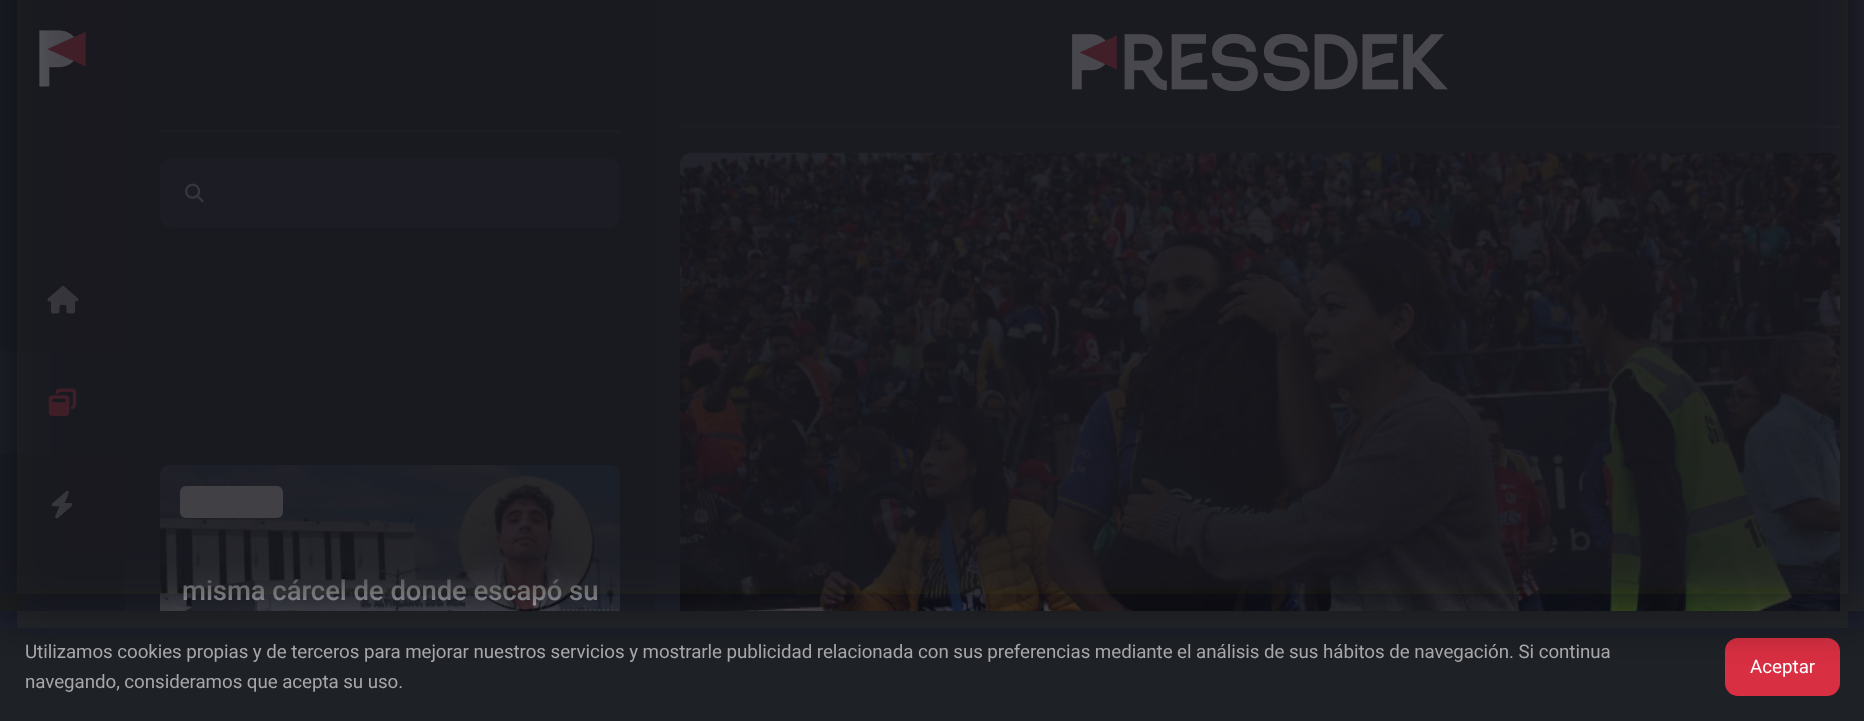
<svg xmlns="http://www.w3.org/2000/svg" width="1864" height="721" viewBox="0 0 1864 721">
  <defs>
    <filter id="blur1" x="-50%" y="-200%" width="200%" height="500%"><feGaussianBlur stdDeviation="25"/></filter>
  </defs>
  <rect width="100%" height="100%" fill="#16191c"/>
  <image x="39" y="30" width="47" height="57" href="img1.png"/>
  <image x="47" y="286" width="32" height="28" href="img2.png"/>
  <rect x="0" y="351" width="125" height="103" fill="#1a1d21"/>
  <image x="48" y="388" width="29" height="28" href="img3.png"/>
  <image x="51" y="491" width="22" height="28" href="img4.png"/>
  <rect x="655" y="0" width="1209" height="611" fill="#1e2126"/>
  <rect x="680" y="125" width="1160" height="3" fill="#292d34"/>
  <image x="1072" y="34" width="376" height="57" href="img5.png"/>
  <image x="680" y="152" width="1160" height="459" href="img6.png"/>
  <rect x="125" y="0" width="530" height="611" fill="#1a1d21"/>
  <rect x="160" y="130" width="460" height="3" fill="#292d34"/>
  <path d="M173 159.5H227.5V226.5H173C166.5 226.5 161.5 221.5 161.5 215V171C161.5 164.5 166.5 159.5 173 159.5Z" fill="#292d34" stroke="#292d34" stroke-width="3"/>
  <image x="185" y="183" width="19" height="20" href="img7.png"/>
  <path d="M227.5 159.5H607C613.5 159.5 618.5 164.5 618.5 171V215C618.5 221.5 613.5 226.5 607 226.5H227.5Z" fill="#292d34" stroke="#292d34" stroke-width="3"/>
  <image x="160" y="465" width="460" height="146" href="img8.png"/>
  <rect x="180" y="486" width="103" height="32" rx="6" fill="#dbdad7"/>
  <text x="182" y="600" font-family="Roboto" font-size="27.5" font-weight="500" letter-spacing="-0.06" fill="#ffffff">misma cárcel de donde escapó su</text>
  <rect x="0" y="611" width="1864" height="110" fill="#1e2126"/>
  <rect x="1725" y="638" width="115" height="58" rx="13" fill="#d92f42"/>
  <rect x="0" y="-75" width="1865" height="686" fill="#1a1d21" fill-opacity="0.8" filter="url(#blur1)"/>
  <text x="25" y="658" font-family="Roboto" font-size="18.75" letter-spacing="-0.06" fill="#a7a6a8">Utilizamos cookies propias y de terceros para mejorar nuestros servicios y mostrarle publicidad relacionada con sus preferencias mediante el análisis de sus hábitos de navegación. Si continua</text>
  <text x="25" y="688" font-family="Roboto" font-size="18.75" letter-spacing="-0.06" fill="#a7a6a8">navegando, consideramos que acepta su uso.</text>
  <text x="1750" y="673" font-family="Roboto" font-size="18.75" fill="#ffffff">Aceptar</text>
</svg>
